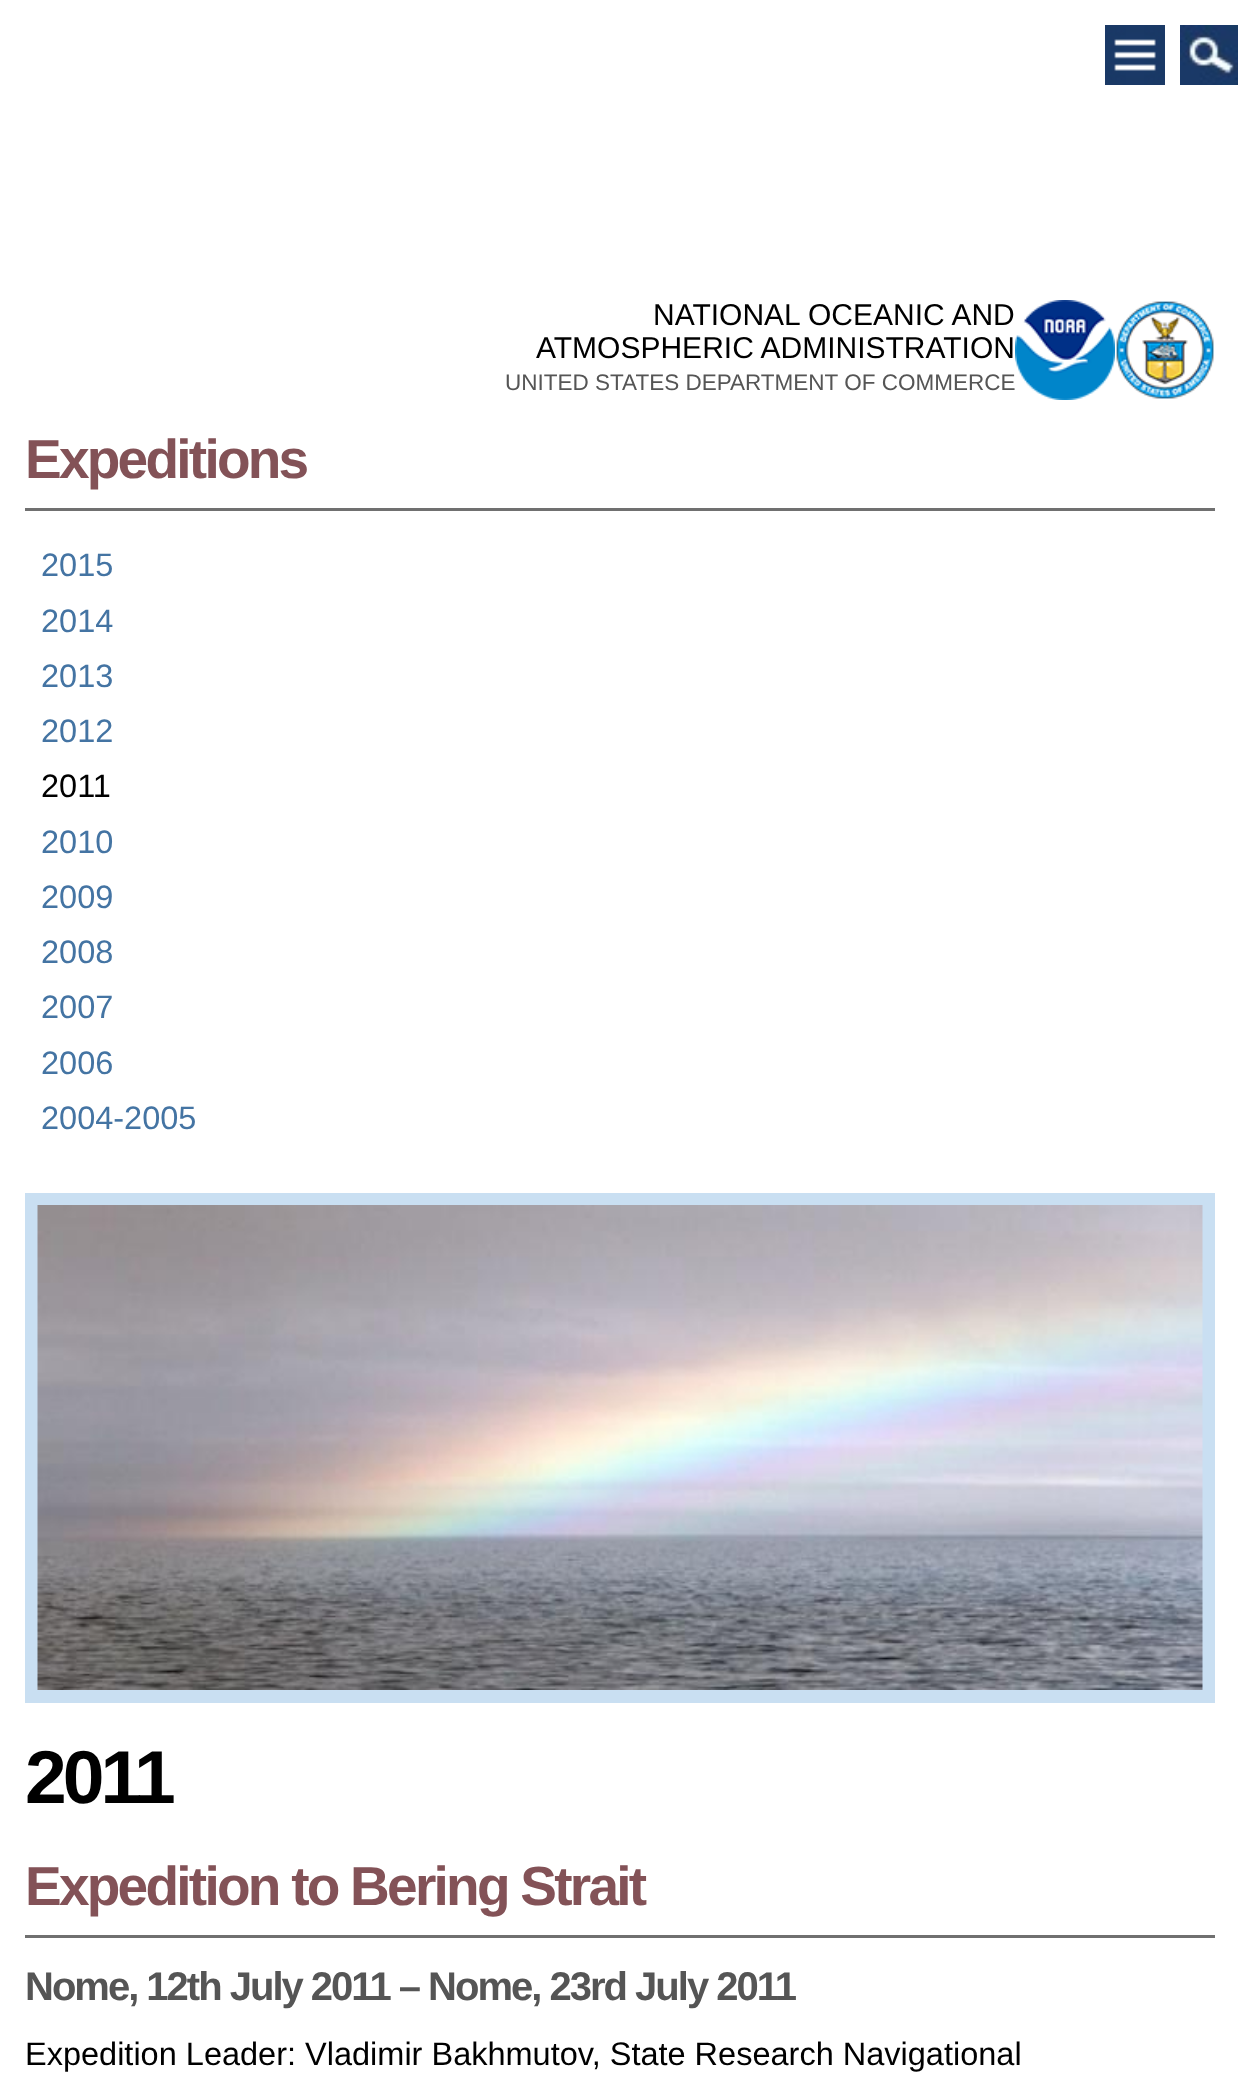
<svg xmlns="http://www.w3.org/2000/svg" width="1238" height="2081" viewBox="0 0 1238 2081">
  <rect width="100%" height="100%" fill="#ffffff"/>
  <image x="1105" y="25" width="60" height="60" href="img1.png"/>
  <image x="1180" y="25" width="58" height="60" href="img2.png"/>
  <text x="653" y="325" font-family="Liberation Sans" font-size="30" fill="#000000">NATIONAL OCEANIC AND</text>
  <text x="536" y="358" font-family="Liberation Sans" font-size="30" fill="#000000">ATMOSPHERIC ADMINISTRATION</text>
  <text x="505" y="390" font-family="Liberation Sans" font-size="22.5" fill="#555555">UNITED STATES DEPARTMENT OF COMMERCE</text>
  <image x="1015" y="300" width="100" height="100" href="img3.png"/>
  <image x="1116" y="301" width="98" height="98" href="img4.png"/>
  <rect x="25" y="508" width="1190" height="3" fill="#707070"/>
  <text x="25" y="478" font-family="Liberation Sans" font-size="55" font-weight="bold" letter-spacing="-2.75" fill="#835257">Expeditions</text>
  <text x="41" y="576" font-family="Liberation Sans" font-size="32.5" fill="#4474a3">2015</text>
  <text x="41" y="632" font-family="Liberation Sans" font-size="32.5" fill="#4474a3">2014</text>
  <text x="41" y="687" font-family="Liberation Sans" font-size="32.5" fill="#4474a3">2013</text>
  <text x="41" y="742" font-family="Liberation Sans" font-size="32.5" fill="#4474a3">2012</text>
  <text x="41" y="797" font-family="Liberation Sans" font-size="32.5" fill="#000000">2011</text>
  <text x="41" y="853" font-family="Liberation Sans" font-size="32.5" fill="#4474a3">2010</text>
  <text x="41" y="908" font-family="Liberation Sans" font-size="32.5" fill="#4474a3">2009</text>
  <text x="41" y="963" font-family="Liberation Sans" font-size="32.5" fill="#4474a3">2008</text>
  <text x="41" y="1018" font-family="Liberation Sans" font-size="32.5" fill="#4474a3">2007</text>
  <text x="41" y="1074" font-family="Liberation Sans" font-size="32.5" fill="#4474a3">2006</text>
  <text x="41" y="1129" font-family="Liberation Sans" font-size="32.5" fill="#4474a3">2004-2005</text>
  <rect x="25" y="1193" width="1190" height="510" fill="#c9dff2"/>
  <image x="37" y="1205" width="1166" height="485" href="img5.png"/>
  <text x="25" y="1803" font-family="Liberation Sans" font-size="75" font-weight="bold" letter-spacing="-4" fill="#000000">2011</text>
  <rect x="25" y="1935" width="1190" height="3" fill="#707070"/>
  <text x="25" y="1905" font-family="Liberation Sans" font-size="55" font-weight="bold" letter-spacing="-2.75" fill="#835257">Expedition to Bering Strait</text>
  <text x="25" y="2000" font-family="Liberation Sans" font-size="40" font-weight="bold" letter-spacing="-2" fill="#555555">Nome, 12th July 2011 – Nome, 23rd July 2011</text>
  <text x="25" y="2065" font-family="Liberation Sans" font-size="32.5" fill="#000000">Expedition Leader: Vladimir Bakhmutov, State Research Navigational</text>
</svg>
